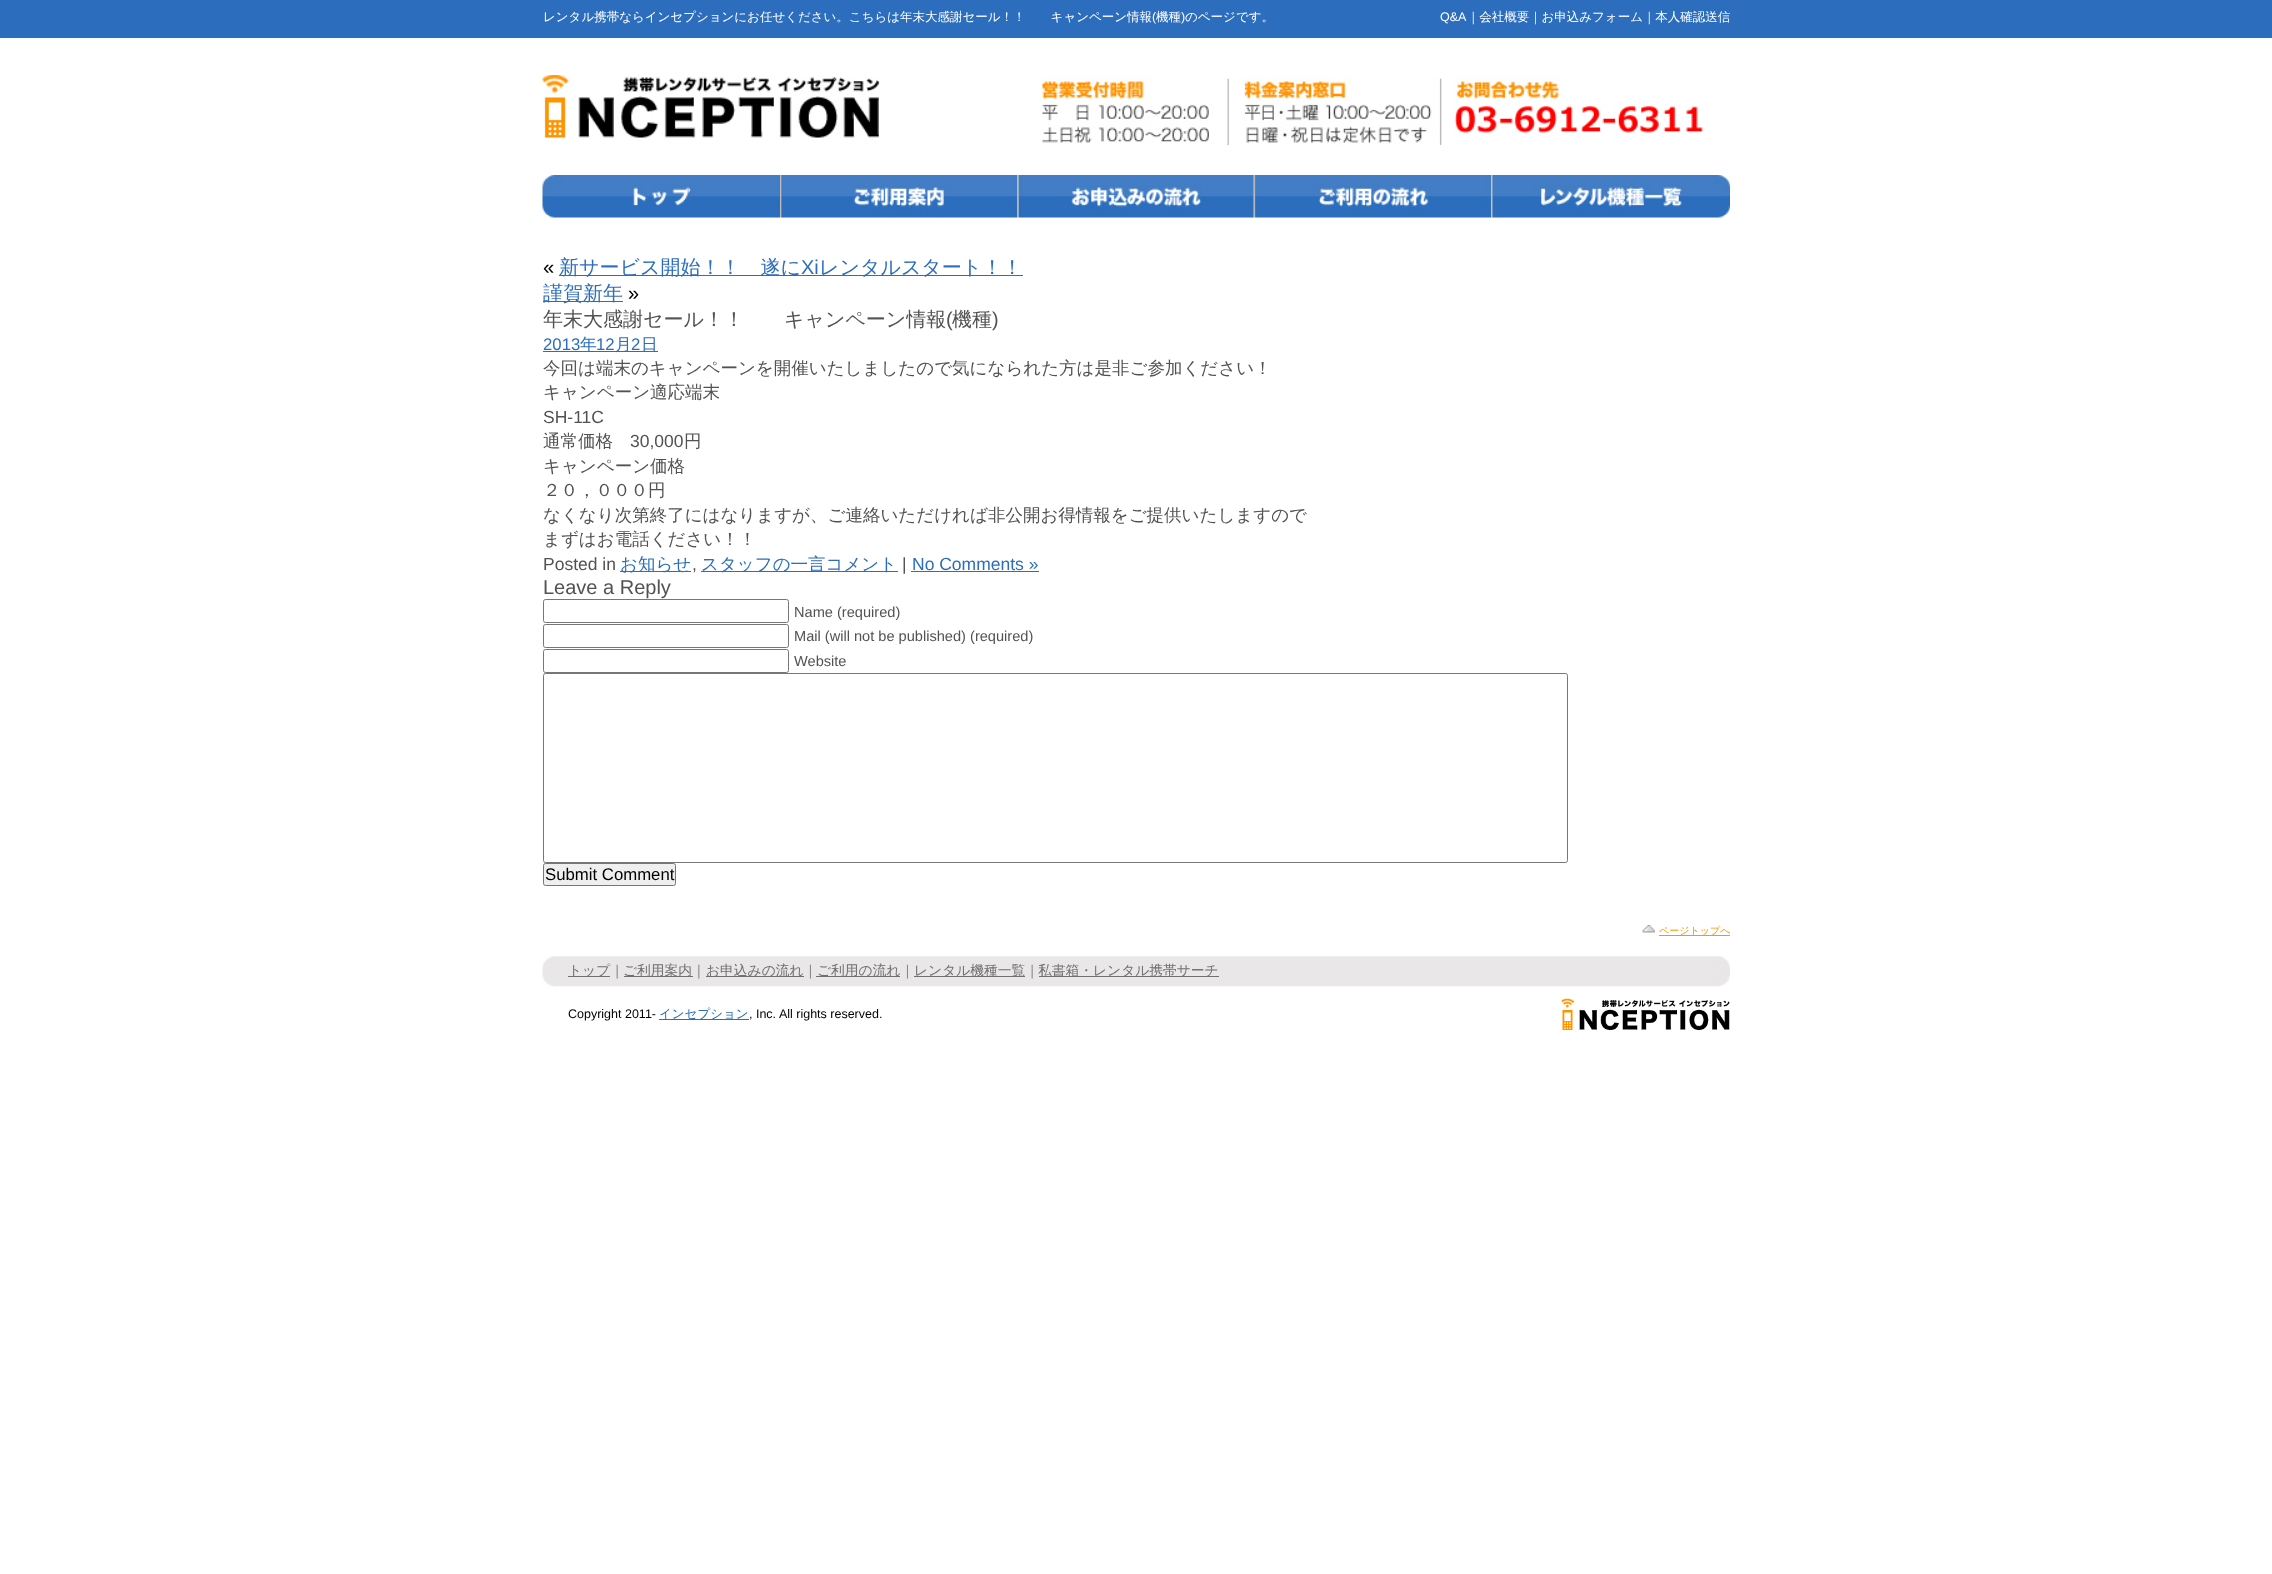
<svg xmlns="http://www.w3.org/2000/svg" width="2272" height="1574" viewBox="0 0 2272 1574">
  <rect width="100%" height="100%" fill="#ffffff"/>
  <rect x="0" y="0" width="2272" height="38" fill="#2c6ebd"/>
  <text x="543" y="21" font-family="WenQuanYi Zen Hei" font-size="12.5" font-weight="500" fill="#ffffff">レンタル携帯ならインセプションにお任せください。こちらは年末大感謝セール！！　　キャンペーン情報</text>
  <text x="1152" y="21" font-family="Liberation Sans" font-size="12.5" fill="#ffffff">(</text>
  <text x="1156" y="21" font-family="WenQuanYi Zen Hei" font-size="12.5" font-weight="500" fill="#ffffff">機種</text>
  <text x="1181" y="21" font-family="Liberation Sans" font-size="12.5" fill="#ffffff">)</text>
  <text x="1185" y="21" font-family="WenQuanYi Zen Hei" font-size="12.5" font-weight="500" fill="#ffffff">のページです。</text>
  <text x="1440" y="21" font-family="Liberation Sans" font-size="12.5" fill="#ffffff">Q&amp;A</text>
  <text x="1467" y="21" font-family="WenQuanYi Zen Hei" font-size="12.5" font-weight="500" fill="#ffffff">｜会社概要｜お申込みフォーム｜本人確認送信</text>
  <image x="542" y="75" width="338" height="63" href="img1.png"/>
  <image x="1042" y="75" width="661" height="71" href="img2.png"/>
  <image x="542" y="175" width="238" height="43" href="img3.png"/>
  <image x="780" y="175" width="238" height="43" href="img4.png"/>
  <image x="1017" y="175" width="237" height="43" href="img5.png"/>
  <image x="1253" y="175" width="239" height="43" href="img6.png"/>
  <image x="1491" y="175" width="239" height="43" href="img7.png"/>
  <text x="543" y="274" font-family="Liberation Sans" font-size="20" fill="#000000">«</text>
  <rect x="559" y="275" width="464" height="1" fill="#2c6ebd"/>
  <text x="559" y="274" font-family="WenQuanYi Zen Hei" font-size="20" font-weight="500" fill="#2c6ebd">新サービス開始！！　遂に</text>
  <text x="801" y="274" font-family="Liberation Sans" font-size="20" fill="#2c6ebd">Xi</text>
  <text x="819" y="274" font-family="WenQuanYi Zen Hei" font-size="20" font-weight="500" fill="#2c6ebd">レンタルスタート！！</text>
  <rect x="543" y="301" width="80" height="1" fill="#2c6ebd"/>
  <text x="543" y="300" font-family="WenQuanYi Zen Hei" font-size="20" font-weight="500" fill="#2c6ebd">謹賀新年</text>
  <text x="628" y="300" font-family="Liberation Sans" font-size="20" fill="#000000">»</text>
  <text x="543" y="326" font-family="WenQuanYi Zen Hei" font-size="20" font-weight="500" fill="#525252">年末大感謝セール！！　　キャンペーン情報</text>
  <text x="946" y="326" font-family="Liberation Sans" font-size="20" fill="#525252">(</text>
  <text x="952" y="326" font-family="WenQuanYi Zen Hei" font-size="20" font-weight="500" fill="#525252">機種</text>
  <text x="992" y="326" font-family="Liberation Sans" font-size="20" fill="#525252">)</text>
  <text x="543" y="350" font-family="Liberation Sans" font-size="16.75" fill="#2c6ebd">2013</text>
  <rect x="543" y="351" width="115" height="1" fill="#2c6ebd"/>
  <text x="580" y="350" font-family="WenQuanYi Zen Hei" font-size="16.75" font-weight="500" fill="#2c6ebd">年</text>
  <text x="596" y="350" font-family="Liberation Sans" font-size="16.75" fill="#2c6ebd">12</text>
  <text x="615" y="350" font-family="WenQuanYi Zen Hei" font-size="16.75" font-weight="500" fill="#2c6ebd">月</text>
  <text x="631" y="350" font-family="Liberation Sans" font-size="16.75" fill="#2c6ebd">2</text>
  <text x="641" y="350" font-family="WenQuanYi Zen Hei" font-size="16.75" font-weight="500" fill="#2c6ebd">日</text>
  <text x="543" y="374" font-family="WenQuanYi Zen Hei" font-size="17.5" font-weight="500" fill="#525252">今回は端末のキャンペーンを開催いたしましたので気になられた方は是非ご参加ください！</text>
  <text x="543" y="398" font-family="WenQuanYi Zen Hei" font-size="17.5" font-weight="500" fill="#525252">キャンペーン適応端末</text>
  <text x="543" y="423" font-family="Liberation Sans" font-size="17.5" fill="#525252">SH-11C</text>
  <text x="543" y="447" font-family="WenQuanYi Zen Hei" font-size="17.5" font-weight="500" fill="#525252">通常価格</text>
  <text x="630" y="447" font-family="Liberation Sans" font-size="17.5" fill="#525252">30,000</text>
  <text x="684" y="447" font-family="WenQuanYi Zen Hei" font-size="17.5" font-weight="500" fill="#525252">円</text>
  <text x="543" y="472" font-family="WenQuanYi Zen Hei" font-size="17.5" font-weight="500" fill="#525252">キャンペーン価格</text>
  <text x="543" y="496" font-family="WenQuanYi Zen Hei" font-size="17.5" font-weight="500" fill="#525252">２０，０００円</text>
  <text x="543" y="521" font-family="WenQuanYi Zen Hei" font-size="17.5" font-weight="500" fill="#525252">なくなり次第終了にはなりますが、ご連絡いただければ非公開お得情報をご提供いたしますので</text>
  <text x="543" y="545" font-family="WenQuanYi Zen Hei" font-size="17.5" font-weight="500" fill="#525252">まずはお電話ください！！</text>
  <text x="543" y="570" font-family="Liberation Sans" font-size="17.5" fill="#525252">Posted in</text>
  <rect x="620" y="571" width="71" height="1" fill="#2c6ebd"/>
  <text x="620" y="570" font-family="WenQuanYi Zen Hei" font-size="17.5" font-weight="500" fill="#2c6ebd">お知らせ</text>
  <text x="692" y="570" font-family="Liberation Sans" font-size="17.5" fill="#525252">,</text>
  <rect x="701" y="571" width="197" height="1" fill="#2c6ebd"/>
  <text x="701" y="570" font-family="WenQuanYi Zen Hei" font-size="17.5" font-weight="500" fill="#2c6ebd">スタッフの一言コメント</text>
  <text x="902" y="570" font-family="Liberation Sans" font-size="17.5" fill="#525252">|</text>
  <text x="912" y="570" font-family="Liberation Sans" font-size="17.5" fill="#2c6ebd">No Comments »</text>
  <rect x="911" y="571" width="128" height="1" fill="#2c6ebd"/>
  <text x="543" y="594" font-family="Liberation Sans" font-size="20" fill="#525252">Leave a Reply</text>
  <rect x="543.5" y="599.5" width="245" height="23" rx="2" fill="none" stroke="#767676"/>
  <text x="794" y="617" font-family="Liberation Sans" font-size="14.6" fill="#525252">Name (required)</text>
  <rect x="543.5" y="624.5" width="245" height="23" rx="2" fill="none" stroke="#767676"/>
  <text x="794" y="641" font-family="Liberation Sans" font-size="14.6" fill="#525252">Mail (will not be published) (required)</text>
  <rect x="543.5" y="649.5" width="245" height="23" rx="2" fill="none" stroke="#767676"/>
  <text x="794" y="666" font-family="Liberation Sans" font-size="14.6" fill="#525252">Website</text>
  <rect x="543.5" y="673.5" width="1024" height="189" rx="2" fill="none" stroke="#767676"/>
  <rect x="543.5" y="863.5" width="132" height="22" rx="2" fill="#efefef" stroke="#767676"/>
  <text x="545" y="880" font-family="Liberation Sans" font-size="16.75" fill="#000000">Submit Comment</text>
  <image x="1642" y="925" width="13" height="8" href="img8.png"/>
  <rect x="1659" y="935" width="71" height="1" fill="#ff9400"/>
  <text x="1659" y="934" font-family="WenQuanYi Zen Hei" font-size="10" font-weight="500" fill="#ff9400">ページトップへ</text>
  <image x="542" y="956" width="1188" height="31" href="img9.png"/>
  <rect x="568" y="976" width="42" height="1" fill="#707070"/>
  <text x="568" y="975" font-family="WenQuanYi Zen Hei" font-size="13.75" font-weight="500" fill="#707070">トップ｜</text>
  <rect x="624" y="976" width="69" height="1" fill="#707070"/>
  <text x="623" y="975" font-family="WenQuanYi Zen Hei" font-size="13.75" font-weight="500" fill="#707070">ご利用案内｜</text>
  <rect x="706" y="976" width="98" height="1" fill="#707070"/>
  <text x="706" y="975" font-family="WenQuanYi Zen Hei" font-size="13.75" font-weight="500" fill="#707070">お申込みの流れ｜</text>
  <rect x="816" y="976" width="84" height="1" fill="#707070"/>
  <text x="817" y="975" font-family="WenQuanYi Zen Hei" font-size="13.75" font-weight="500" fill="#707070">ご利用の流れ｜</text>
  <rect x="914" y="976" width="111" height="1" fill="#707070"/>
  <text x="914" y="975" font-family="WenQuanYi Zen Hei" font-size="13.75" font-weight="500" fill="#707070">レンタル機種一覧｜</text>
  <rect x="1039" y="976" width="180" height="1" fill="#707070"/>
  <text x="1038" y="975" font-family="WenQuanYi Zen Hei" font-size="13.75" font-weight="500" fill="#707070">私書箱・レンタル携帯サーチ</text>
  <text x="568" y="1018" font-family="Liberation Sans" font-size="12.5" fill="#000000">Copyright 2011-</text>
  <rect x="659" y="1019" width="90" height="1" fill="#2c6ebd"/>
  <text x="659" y="1018" font-family="WenQuanYi Zen Hei" font-size="12.5" font-weight="500" fill="#2c6ebd">インセプション</text>
  <text x="749" y="1018" font-family="Liberation Sans" font-size="12.5" fill="#000000">, Inc. All rights reserved.</text>
  <image x="1561" y="998" width="169" height="32" href="img10.png"/>
</svg>
